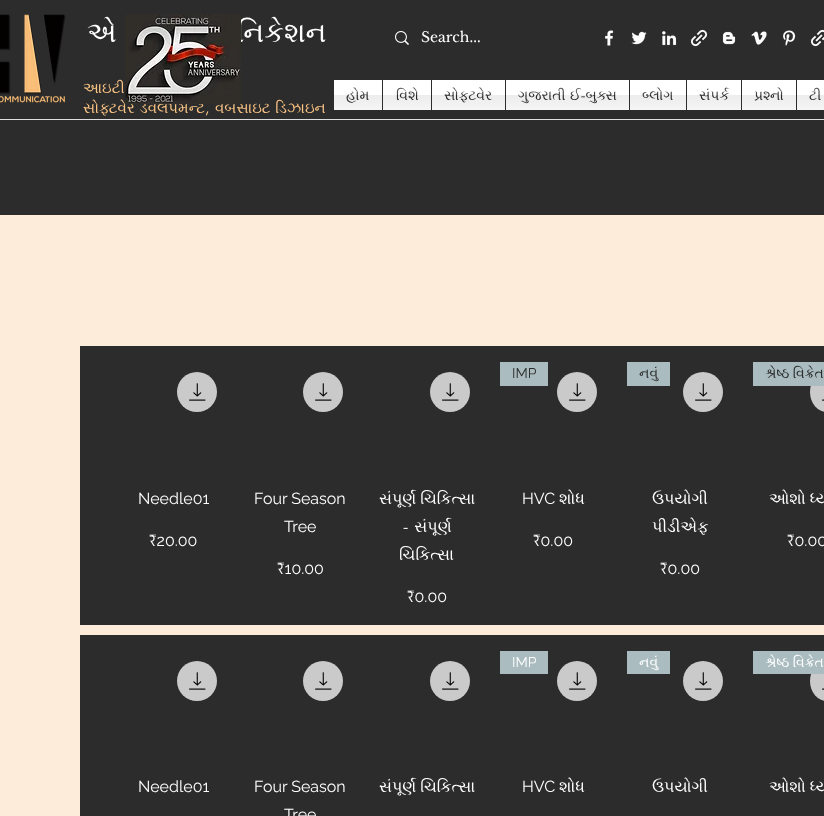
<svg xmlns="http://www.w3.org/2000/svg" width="824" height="816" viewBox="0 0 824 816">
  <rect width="100%" height="100%" fill="#fcecd9"/>
  <rect x="0" y="0" width="824" height="215" fill="#2c2c2c"/>
  <text x="237" y="42" font-family="FreeSerif" font-size="28" fill="#ffffff">ુનિકેશન</text>
  <text x="83" y="113" word-spacing="1" font-family="FreeSerif" font-size="15" fill="#fac484">સોફ્ટવેર ડેવલપમેન્ટ</text>
  <text x="215" y="113" word-spacing="1" font-family="FreeSerif" font-size="15" fill="#fac484">વેબસાઇટ ડિઝાઇન</text>
  <image x="125" y="14" width="116" height="90" href="img1.png"/>
  <image x="0" y="14" width="66" height="89" href="img2.png"/>
  <text x="87" y="42" font-family="FreeSerif" font-size="28" fill="#ffffff">એ</text>
  <text x="83" y="93" word-spacing="1" font-family="FreeSerif" font-size="15" fill="#fac484">આઇટી</text>
  <text x="205" y="113" font-family="futura" font-size="15" fill="#fac484">,</text>
  <image x="395" y="31" width="14" height="14" href="img3.png"/>
  <text x="421" y="42" font-family="Libre Baskerville" font-size="14" fill="#ffffff">Search...</text>
  <image x="605" y="30" width="9" height="16" href="img4.png"/>
  <image x="631" y="31" width="16" height="14" href="img5.png"/>
  <image x="662" y="31" width="15" height="15" href="img6.png"/>
  <image x="690" y="29" width="18" height="18" href="img7.png"/>
  <image x="722" y="31" width="14" height="14" href="img8.png"/>
  <image x="751" y="31" width="16" height="14" href="img9.png"/>
  <image x="783" y="30" width="13" height="16" href="img10.png"/>
  <image x="810" y="29" width="14" height="18" href="img11.png"/>
  <rect x="334" y="80" width="48" height="30" fill="#ffffff"/>
  <text x="346" y="100" font-family="FreeSerif" font-size="14" fill="#2c2c2c">હોમ</text>
  <image x="334" y="87" width="48" height="23" href="img12.png"/>
  <rect x="383" y="80" width="48" height="30" fill="#ffffff"/>
  <text x="396" y="100" font-family="FreeSerif" font-size="14" fill="#2c2c2c">વિશે</text>
  <image x="383" y="87" width="48" height="23" href="img13.png"/>
  <rect x="432" y="80" width="73" height="30" fill="#ffffff"/>
  <text x="444" y="100" font-family="FreeSerif" font-size="14" fill="#2c2c2c">સોફ્ટવેર</text>
  <image x="432" y="87" width="73" height="23" href="img14.png"/>
  <rect x="506" y="80" width="123" height="30" fill="#ffffff"/>
  <text x="518" y="100" word-spacing="1" font-family="FreeSerif" font-size="14" fill="#2c2c2c">ગુજરાતી ઈ-બુક્સ</text>
  <image x="506" y="87" width="123" height="23" href="img15.png"/>
  <rect x="630" y="80" width="56" height="30" fill="#ffffff"/>
  <text x="642" y="100" font-family="FreeSerif" font-size="14" fill="#2c2c2c">બ્લોગ</text>
  <image x="630" y="87" width="56" height="23" href="img16.png"/>
  <rect x="687" y="80" width="54" height="30" fill="#ffffff"/>
  <text x="699" y="100" font-family="FreeSerif" font-size="14" fill="#2c2c2c">સંપર્ક</text>
  <image x="687" y="87" width="54" height="23" href="img17.png"/>
  <rect x="742" y="80" width="54" height="30" fill="#ffffff"/>
  <text x="754" y="100" font-family="FreeSerif" font-size="14" fill="#2c2c2c">પ્રશ્નો</text>
  <image x="742" y="87" width="54" height="23" href="img18.png"/>
  <rect x="797" y="80" width="27" height="30" fill="#ffffff"/>
  <text x="809" y="100" font-family="FreeSerif" font-size="14" fill="#2c2c2c">ટી</text>
  <image x="797" y="87" width="27" height="23" href="img19.png"/>
  <rect x="0" y="119" width="824" height="1" fill="#dfdfdf"/>
  <rect x="80" y="346" width="744" height="279" fill="#2c2c2c"/>
  <circle cx="197" cy="392" r="20" fill="#cacaca"/>
  <image x="189" y="383" width="17" height="18" href="img20.png"/>
  <text x="138" y="504" font-family="Raleway" font-size="16" fill="#ffffff">Needle01</text>
  <text x="149" y="546" font-family="Raleway" font-size="16" fill="#ffffff">₹20.00</text>
  <circle cx="323" cy="392" r="20" fill="#cacaca"/>
  <image x="315" y="383" width="17" height="18" href="img20.png"/>
  <text x="254" y="504" font-family="Raleway" font-size="16" fill="#ffffff">Four Season</text>
  <text x="284" y="532" font-family="Raleway" font-size="16" fill="#ffffff">Tree</text>
  <text x="277" y="574" font-family="Raleway" font-size="16" fill="#ffffff">₹10.00</text>
  <circle cx="450" cy="392" r="20" fill="#cacaca"/>
  <image x="442" y="383" width="17" height="18" href="img20.png"/>
  <text x="379" y="504" font-family="FreeSerif" font-size="16" fill="#ffffff">સંપૂર્ણ ચિકિત્સા</text>
  <text x="403" y="532" word-spacing="2" font-family="FreeSerif" font-size="16" fill="#ffffff">- સંપૂર્ણ</text>
  <text x="399" y="560" font-family="FreeSerif" font-size="16" fill="#ffffff">ચિકિત્સા</text>
  <text x="407" y="602" font-family="Raleway" font-size="16" fill="#ffffff">₹0.00</text>
  <rect x="500" y="362" width="48" height="24" fill="#aabcbf"/>
  <text x="512" y="378" font-family="Raleway" font-size="14" fill="#2c2c2c">IMP</text>
  <circle cx="577" cy="392" r="20" fill="#cacaca"/>
  <image x="569" y="383" width="17" height="18" href="img20.png"/>
  <text x="522" y="504" font-family="Raleway" font-size="16" fill="#ffffff">HVC</text>
  <text x="559" y="504" font-family="FreeSerif" font-size="16" fill="#ffffff">શોધ</text>
  <text x="533" y="546" font-family="Raleway" font-size="16" fill="#ffffff">₹0.00</text>
  <rect x="627" y="362" width="43" height="24" fill="#aabcbf"/>
  <text x="639" y="378" font-family="FreeSerif" font-size="14" fill="#2c2c2c">નવું</text>
  <circle cx="703" cy="392" r="20" fill="#cacaca"/>
  <image x="695" y="383" width="17" height="18" href="img20.png"/>
  <text x="652" y="504" font-family="FreeSerif" font-size="16" fill="#ffffff">ઉપયોગી</text>
  <text x="652" y="532" font-family="FreeSerif" font-size="16" fill="#ffffff">પીડીએફ</text>
  <text x="660" y="574" font-family="Raleway" font-size="16" fill="#ffffff">₹0.00</text>
  <rect x="810" y="372" width="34" height="40" rx="20" fill="#cacaca"/>
  <rect x="753" y="362" width="71" height="24" fill="#aabcbf"/>
  <text x="765" y="378" font-family="FreeSerif" font-size="14" fill="#2c2c2c">શ્રેષ્ઠ વિક્રેતા</text>
  <image x="822" y="399" width="2" height="2" href="img21.png"/>
  <text x="769" y="504" font-family="FreeSerif" font-size="16" fill="#ffffff">ઓશો ધ્ય</text>
  <text x="787" y="546" font-family="Raleway" font-size="16" fill="#ffffff">₹0.00</text>
  <rect x="80" y="635" width="744" height="181" fill="#2c2c2c"/>
  <circle cx="197" cy="681" r="20" fill="#cacaca"/>
  <image x="189" y="672" width="17" height="18" href="img20.png"/>
  <text x="138" y="792" font-family="Raleway" font-size="16" fill="#ffffff">Needle01</text>
  <circle cx="323" cy="681" r="20" fill="#cacaca"/>
  <image x="315" y="672" width="17" height="18" href="img20.png"/>
  <text x="254" y="792" font-family="Raleway" font-size="16" fill="#ffffff">Four Season</text>
  <text x="284" y="820" font-family="Raleway" font-size="16" fill="#ffffff">Tree</text>
  <circle cx="450" cy="681" r="20" fill="#cacaca"/>
  <image x="442" y="672" width="17" height="18" href="img20.png"/>
  <text x="379" y="792" font-family="FreeSerif" font-size="16" fill="#ffffff">સંપૂર્ણ ચિકિત્સા</text>
  <rect x="500" y="651" width="48" height="23" fill="#aabcbf"/>
  <text x="512" y="667" font-family="Raleway" font-size="14" fill="#ffffff">IMP</text>
  <circle cx="577" cy="681" r="20" fill="#cacaca"/>
  <image x="569" y="672" width="17" height="18" href="img20.png"/>
  <text x="522" y="792" font-family="Raleway" font-size="16" fill="#ffffff">HVC</text>
  <text x="559" y="792" font-family="FreeSerif" font-size="16" fill="#ffffff">શોધ</text>
  <rect x="627" y="651" width="43" height="23" fill="#aabcbf"/>
  <text x="639" y="667" font-family="FreeSerif" font-size="14" fill="#ffffff">નવું</text>
  <circle cx="703" cy="681" r="20" fill="#cacaca"/>
  <image x="695" y="672" width="17" height="18" href="img20.png"/>
  <text x="652" y="792" font-family="FreeSerif" font-size="16" fill="#ffffff">ઉપયોગી</text>
  <rect x="810" y="661" width="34" height="40" rx="20" fill="#cacaca"/>
  <rect x="753" y="651" width="71" height="23" fill="#aabcbf"/>
  <text x="765" y="667" font-family="FreeSerif" font-size="14" fill="#ffffff">શ્રેષ્ઠ વિક્રેતા</text>
  <image x="822" y="688" width="2" height="2" href="img21.png"/>
  <text x="769" y="792" font-family="FreeSerif" font-size="16" fill="#ffffff">ઓશો ધ્ય</text>
</svg>
